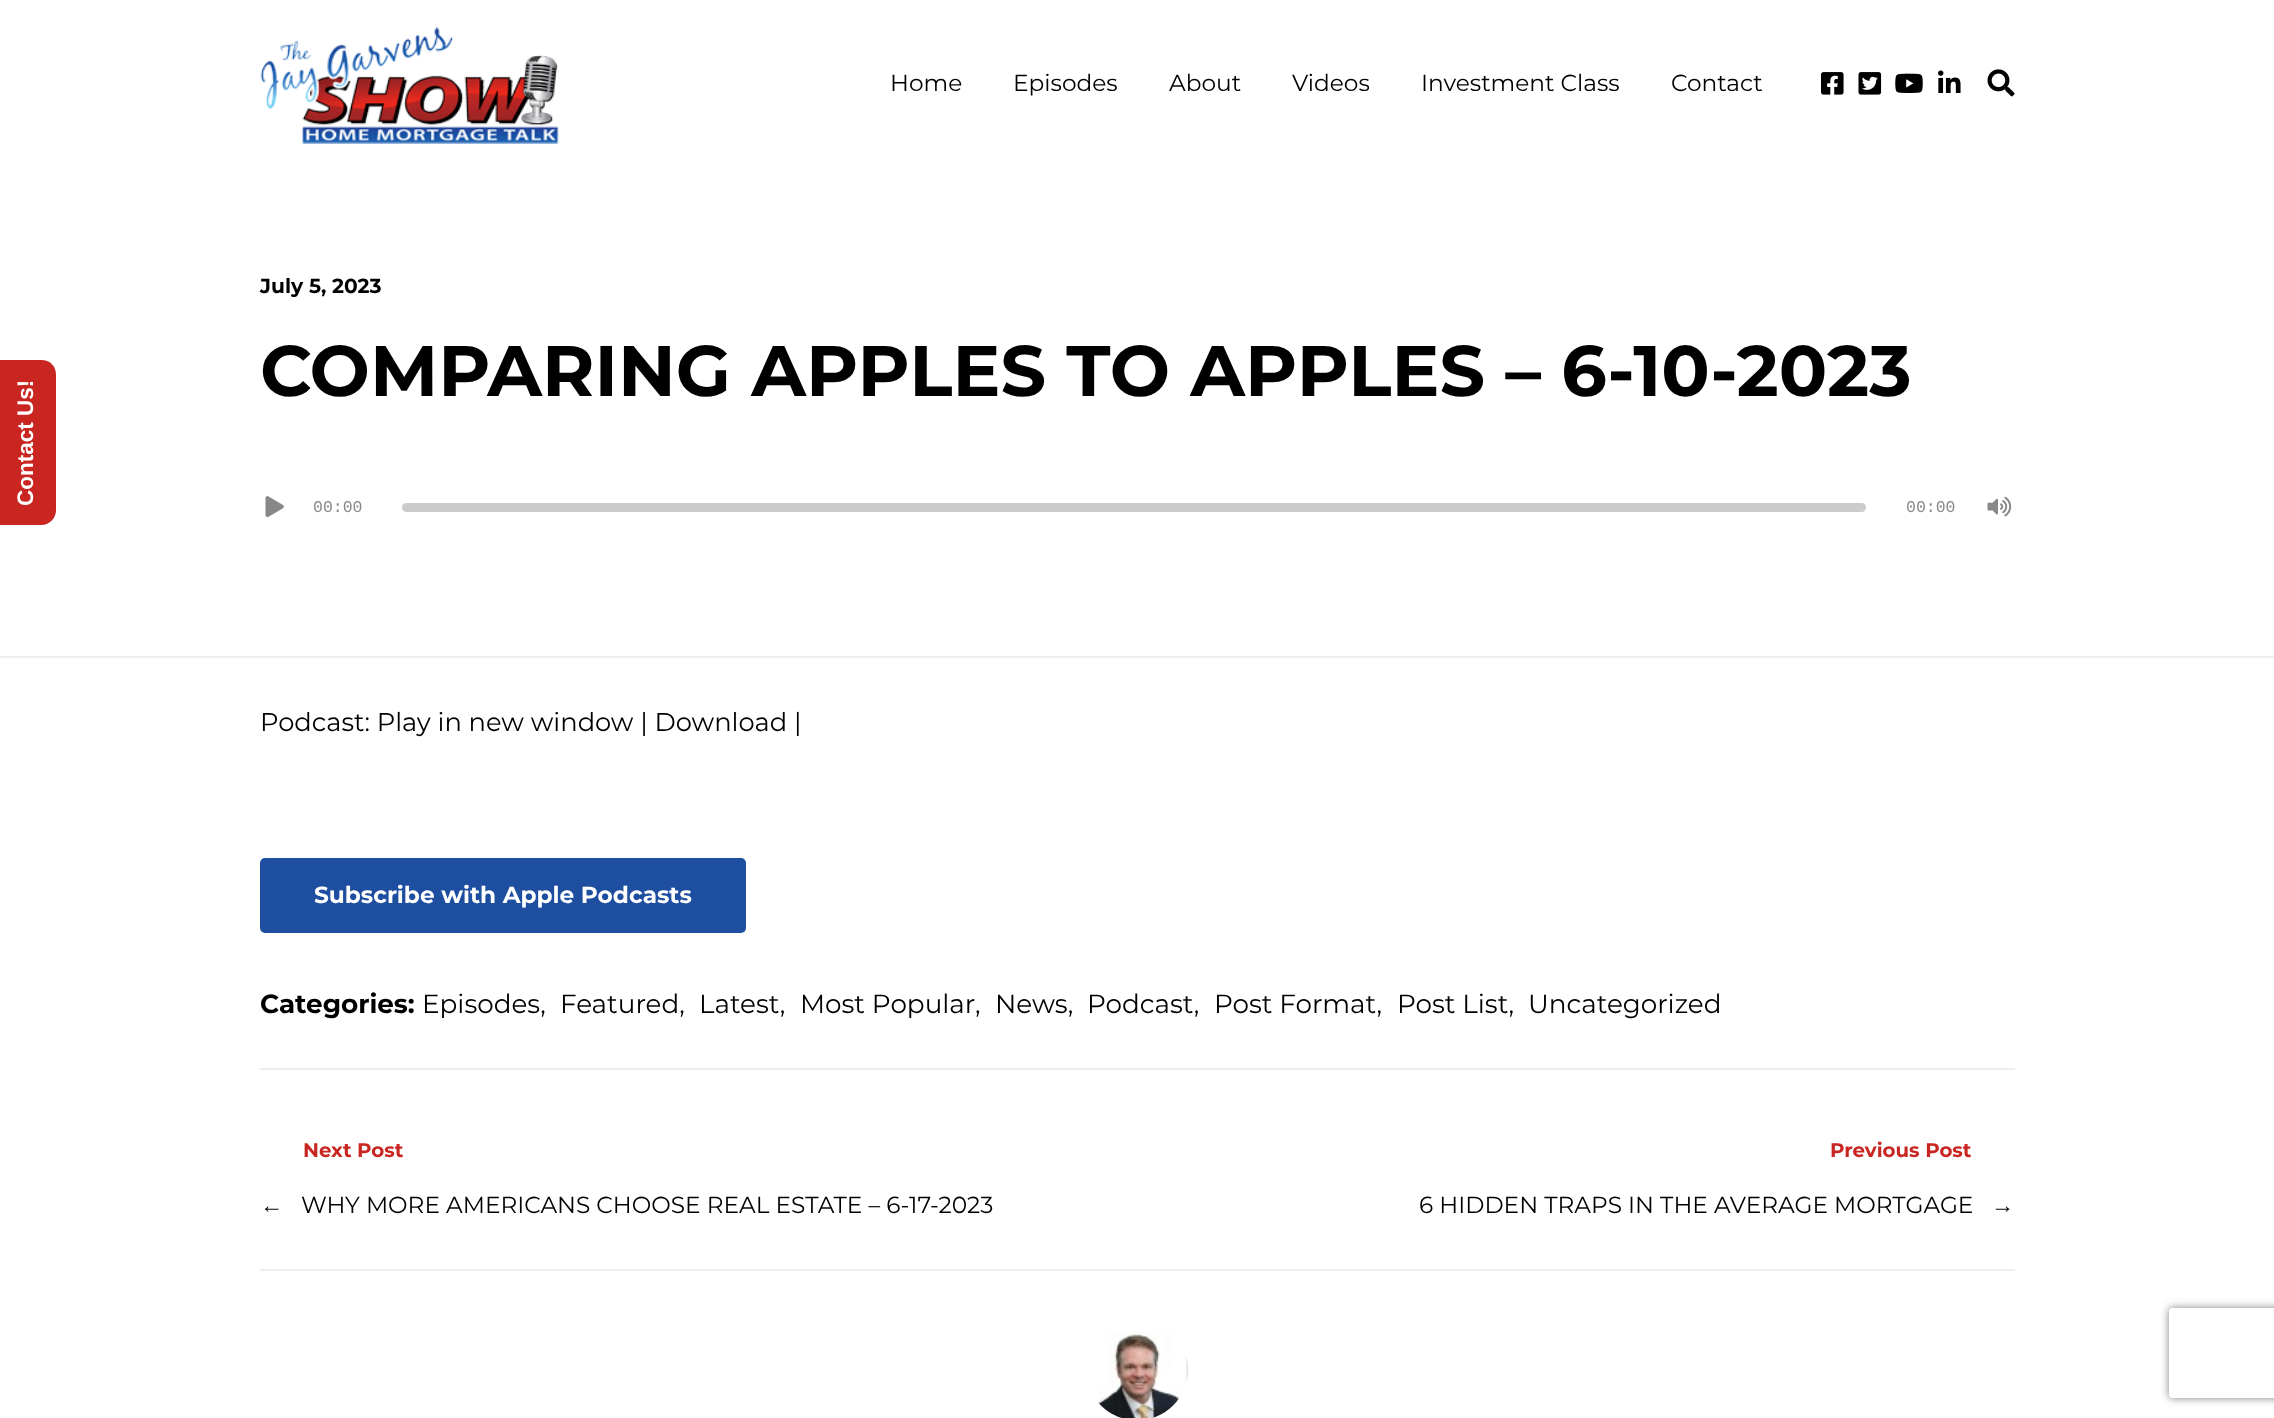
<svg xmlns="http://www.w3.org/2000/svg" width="2274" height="1418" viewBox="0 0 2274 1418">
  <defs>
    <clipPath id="clip1"><path d="M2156 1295H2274V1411H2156ZM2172 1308H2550C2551.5 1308 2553 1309.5 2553 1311V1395C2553 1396.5 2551.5 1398 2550 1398H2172C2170.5 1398 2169 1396.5 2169 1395V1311C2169 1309.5 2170.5 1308 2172 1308Z" clip-rule="evenodd"/></clipPath>
    <filter id="blur1" x="-50%" y="-200%" width="200%" height="500%"><feGaussianBlur stdDeviation="4"/></filter>
  </defs>
  <rect width="100%" height="100%" fill="#ffffff"/>
  <path d="M-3 525V360H41C50 360 56 366 56 375V510C56 518 50 525 41 525Z" fill="#c92622"/>
  <text x="33" y="506" transform="rotate(-90 33 506)" font-family="Liberation Sans" font-size="22.5" font-weight="bold" fill="#ffffff">Contact Us!</text>
  <image x="260" y="26" width="299" height="118" href="img1.png"/>
  <text x="890" y="91" font-family="Montserrat" font-size="23.25" fill="#000000">Home</text>
  <text x="1013" y="91" font-family="Montserrat" font-size="23.25" fill="#000000">Episodes</text>
  <text x="1169" y="91" font-family="Montserrat" font-size="23.25" fill="#000000">About</text>
  <text x="1292" y="91" font-family="Montserrat" font-size="23.25" fill="#000000">Videos</text>
  <text x="1421" y="91" font-family="Montserrat" font-size="23.25" fill="#000000">Investment Class</text>
  <text x="1671" y="91" font-family="Montserrat" font-size="23.25" fill="#000000">Contact</text>
  <image x="1821" y="72" width="23" height="23" href="img2.png"/>
  <image x="1858" y="72" width="24" height="23" href="img3.png"/>
  <image x="1895" y="73" width="28" height="20" href="img4.png"/>
  <image x="1938" y="70" width="23" height="23" href="img5.png"/>
  <image x="1987" y="69" width="28" height="28" href="img6.png"/>
  <text x="260" y="293" font-family="Montserrat" font-size="20.25" font-weight="bold" fill="#000000">July 5, 2023</text>
  <text x="260" y="396" font-family="Montserrat" font-size="71.5" font-weight="bold" fill="#000000">COMPARING APPLES TO APPLES – 6-10-2023</text>
  <image x="265" y="496" width="19" height="22" href="img7.png"/>
  <text x="313" y="512" font-family="Liberation Mono" font-size="16.5" fill="#888888">00:00</text>
  <rect x="402" y="503" width="1464" height="9" rx="4.5" fill="#cccccc"/>
  <text x="1906" y="512" font-family="Liberation Mono" font-size="16.5" fill="#888888">00:00</text>
  <image x="1987" y="496" width="25" height="21" href="img8.png"/>
  <rect x="0" y="656" width="2274" height="2" fill="#eeeeee"/>
  <text x="260" y="731" font-family="Montserrat" font-size="25.75" fill="#000000">Podcast: Play in new window | Download |</text>
  <rect x="260" y="858" width="486" height="75" rx="5" fill="#1e4ea0"/>
  <text x="314" y="903" font-family="Montserrat" font-size="23.25" font-weight="bold" fill="#ffffff">Subscribe with Apple Podcasts</text>
  <text x="260" y="1013" font-family="Montserrat" font-size="26.25" font-weight="bold" fill="#000000">Categories:</text>
  <text x="422" y="1013" font-family="Montserrat" font-size="26.25" fill="#000000">Episodes,</text>
  <text x="560" y="1013" font-family="Montserrat" font-size="26.25" fill="#000000">Featured,</text>
  <text x="699" y="1013" font-family="Montserrat" font-size="26.25" fill="#000000">Latest,</text>
  <text x="800" y="1013" font-family="Montserrat" font-size="26.25" fill="#000000">Most Popular</text>
  <text x="975" y="1013" font-family="Montserrat" font-size="26.25" fill="#000000">,</text>
  <text x="995" y="1013" font-family="Montserrat" font-size="26.25" fill="#000000">News,</text>
  <text x="1087" y="1013" font-family="Montserrat" font-size="26.25" fill="#000000">Podcast,</text>
  <text x="1214" y="1013" font-family="Montserrat" font-size="26.25" fill="#000000">Post Format,</text>
  <text x="1397" y="1013" font-family="Montserrat" font-size="26.25" fill="#000000">Post List,</text>
  <text x="1528" y="1013" font-family="Montserrat" font-size="26.25" fill="#000000">Uncategorized</text>
  <rect x="260" y="1068" width="1755" height="2" fill="#eeeeee"/>
  <text x="303" y="1157" font-family="Montserrat" font-size="19.75" font-weight="bold" fill="#c92622">Next Post</text>
  <text x="260" y="1213" font-family="Liberation Serif" font-size="23.25" fill="#000000">←</text>
  <text x="301" y="1213" font-family="Montserrat" font-size="23.25" fill="#000000">WHY MORE AMERICANS CHOOSE REAL ESTATE – 6-17-2023</text>
  <text x="1830" y="1157" font-family="Montserrat" font-size="19.75" font-weight="bold" fill="#c92622">Previous Post</text>
  <text x="1419" y="1213" font-family="Montserrat" font-size="23.25" fill="#000000">6 HIDDEN TRAPS IN THE AVERAGE MORTGAGE</text>
  <text x="1991" y="1213" font-family="Liberation Serif" font-size="23.25" fill="#000000">→</text>
  <rect x="260" y="1269" width="1755" height="2" fill="#eeeeee"/>
  <image x="1098" y="1331" width="90" height="87" href="img9.png"/>
  <g clip-path="url(#clip1)">
    <rect x="2169" y="1308" width="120" height="90" rx="3" fill="#808080" filter="url(#blur1)"/>
  </g>
</svg>
